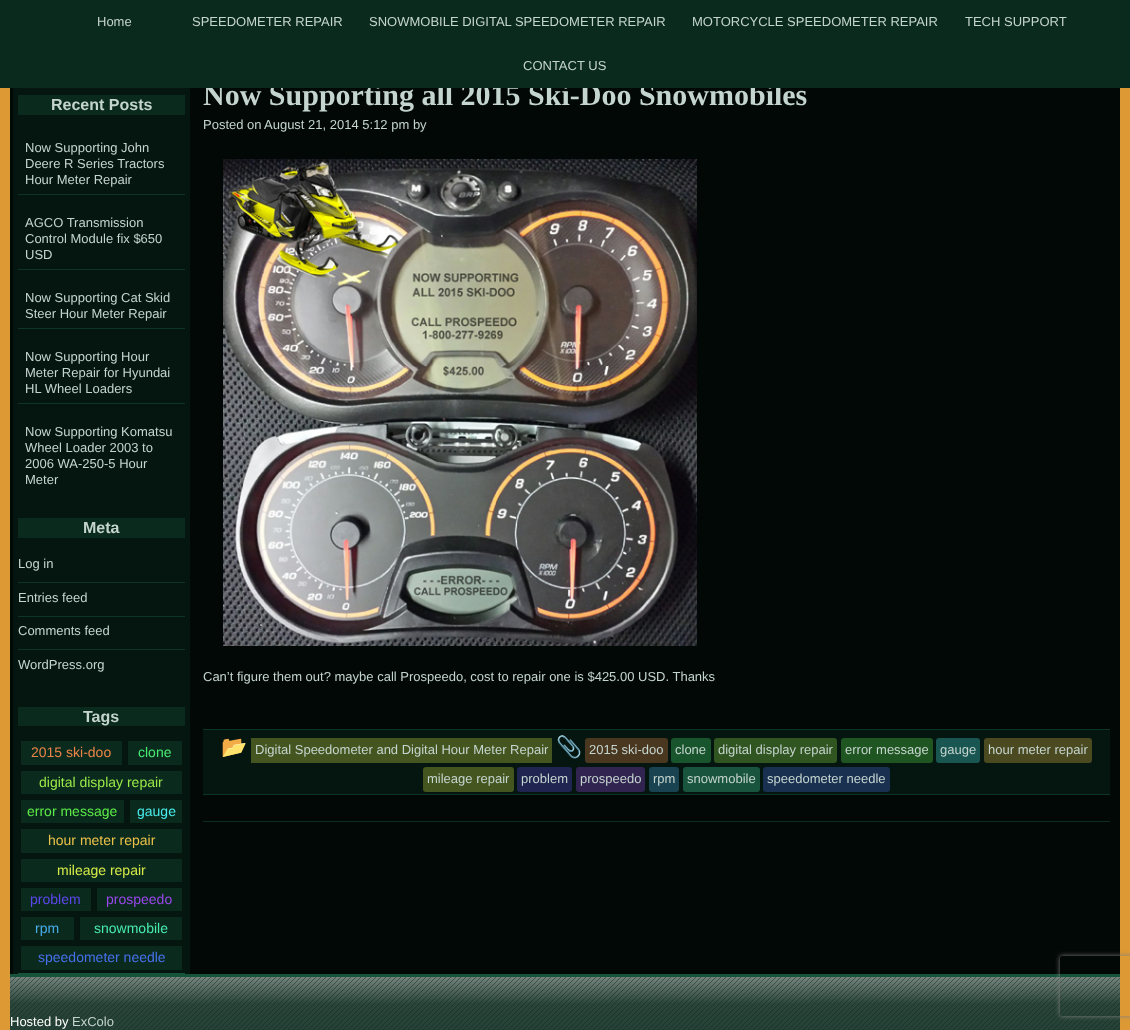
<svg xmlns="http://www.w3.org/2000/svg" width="1130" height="1030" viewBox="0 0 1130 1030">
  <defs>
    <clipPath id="clip1"><path d="M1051 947H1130V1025H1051ZM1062 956H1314C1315 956 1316 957 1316 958V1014C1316 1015 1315 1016 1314 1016H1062C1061 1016 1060 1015 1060 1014V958C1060 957 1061 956 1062 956Z" clip-rule="evenodd"/></clipPath>
    <filter id="blur1" x="-50%" y="-200%" width="200%" height="500%"><feGaussianBlur stdDeviation="2.5"/></filter>
  </defs>
  <rect width="100%" height="100%" fill="#dd9933"/>
  <rect x="10" y="88" width="1110" height="886" fill="#020806"/>
  <text x="203" y="105" font-family="Liberation Serif" font-size="30" font-weight="bold" fill="#c4d4ce">Now Supporting all 2015 Ski-Doo Snowmobiles</text>
  <rect x="0" y="0" width="1130" height="88" fill="#0b2a1e"/>
  <text x="97" y="26" font-family="Liberation Sans" font-size="13" fill="#c4d4ce">Home</text>
  <text x="192" y="26" font-family="Liberation Sans" font-size="13" fill="#c4d4ce">SPEEDOMETER REPAIR</text>
  <text x="369" y="26" font-family="Liberation Sans" font-size="13" fill="#c4d4ce">SNOWMOBILE DIGITAL SPEEDOMETER REPAIR</text>
  <text x="692" y="26" font-family="Liberation Sans" font-size="13" fill="#c4d4ce">MOTORCYCLE SPEEDOMETER REPAIR</text>
  <text x="965" y="26" font-family="Liberation Sans" font-size="13" fill="#c4d4ce">TECH SUPPORT</text>
  <text x="523" y="70" font-family="Liberation Sans" font-size="13" fill="#c4d4ce">CONTACT US</text>
  <rect x="13" y="88" width="177" height="886" fill="#05150f"/>
  <rect x="18" y="95" width="167" height="20" fill="#0b2a1e"/>
  <text x="51" y="110" font-family="Liberation Sans" font-size="16" font-weight="bold" fill="#c4d4ce">Recent Posts</text>
  <rect x="18" y="194" width="167" height="1" fill="#0d3525"/>
  <text x="25" y="152" font-family="Liberation Sans" font-size="13" fill="#c4d4ce">Now Supporting John</text>
  <text x="25" y="168" font-family="Liberation Sans" font-size="13" fill="#c4d4ce">Deere R Series Tractors</text>
  <text x="25" y="184" font-family="Liberation Sans" font-size="13" fill="#c4d4ce">Hour Meter Repair</text>
  <rect x="18" y="269" width="167" height="1" fill="#0d3525"/>
  <text x="25" y="227" font-family="Liberation Sans" font-size="13" fill="#c4d4ce">AGCO Transmission</text>
  <text x="25" y="243" font-family="Liberation Sans" font-size="13" fill="#c4d4ce">Control Module fix $650</text>
  <text x="25" y="259" font-family="Liberation Sans" font-size="13" fill="#c4d4ce">USD</text>
  <rect x="18" y="328" width="167" height="1" fill="#0d3525"/>
  <text x="25" y="302" font-family="Liberation Sans" font-size="13" fill="#c4d4ce">Now Supporting Cat Skid</text>
  <text x="25" y="318" font-family="Liberation Sans" font-size="13" fill="#c4d4ce">Steer Hour Meter Repair</text>
  <rect x="18" y="403" width="167" height="1" fill="#0d3525"/>
  <text x="25" y="361" font-family="Liberation Sans" font-size="13" fill="#c4d4ce">Now Supporting Hour</text>
  <text x="25" y="377" font-family="Liberation Sans" font-size="13" fill="#c4d4ce">Meter Repair for Hyundai</text>
  <text x="25" y="393" font-family="Liberation Sans" font-size="13" fill="#c4d4ce">HL Wheel Loaders</text>
  <text x="25" y="436" font-family="Liberation Sans" font-size="13" fill="#c4d4ce">Now Supporting Komatsu</text>
  <text x="25" y="452" font-family="Liberation Sans" font-size="13" fill="#c4d4ce">Wheel Loader 2003 to</text>
  <text x="25" y="468" font-family="Liberation Sans" font-size="13" fill="#c4d4ce">2006 WA-250-5 Hour</text>
  <text x="25" y="484" font-family="Liberation Sans" font-size="13" fill="#c4d4ce">Meter</text>
  <rect x="18" y="518" width="167" height="20" fill="#0b2a1e"/>
  <text x="83" y="533" font-family="Liberation Sans" font-size="16" font-weight="bold" fill="#c4d4ce">Meta</text>
  <rect x="18" y="582" width="167" height="1" fill="#0d3525"/>
  <text x="18" y="568" font-family="Liberation Sans" font-size="13" fill="#c4d4ce">Log in</text>
  <rect x="18" y="616" width="167" height="1" fill="#0d3525"/>
  <text x="18" y="602" font-family="Liberation Sans" font-size="13" fill="#c4d4ce">Entries feed</text>
  <rect x="18" y="649" width="167" height="1" fill="#0d3525"/>
  <text x="18" y="635" font-family="Liberation Sans" font-size="13" fill="#c4d4ce">Comments feed</text>
  <text x="18" y="669" font-family="Liberation Sans" font-size="13" fill="#c4d4ce">WordPress.org</text>
  <rect x="18" y="973" width="167" height="1" fill="#15543b"/>
  <rect x="18" y="707" width="167" height="19" fill="#0b2a1e"/>
  <text x="83" y="722" font-family="Liberation Sans" font-size="16" font-weight="bold" fill="#c4d4ce">Tags</text>
  <rect x="21" y="741" width="101" height="24" fill="#0b2a1e"/>
  <text x="31" y="757" font-family="Liberation Sans" font-size="14" fill="#eb8547">2015 ski-doo</text>
  <rect x="128" y="741" width="54" height="24" fill="#0b2a1e"/>
  <text x="138" y="757" font-family="Liberation Sans" font-size="14" fill="#47eb70">clone</text>
  <rect x="21" y="771" width="161" height="23" fill="#0b2a1e"/>
  <text x="39" y="787" font-family="Liberation Sans" font-size="14" fill="#99eb47">digital display repair</text>
  <rect x="21" y="800" width="103" height="23" fill="#0b2a1e"/>
  <text x="27" y="816" font-family="Liberation Sans" font-size="14" fill="#5ceb47">error message</text>
  <rect x="130" y="800" width="52" height="23" fill="#0b2a1e"/>
  <text x="137" y="816" font-family="Liberation Sans" font-size="14" fill="#47ebeb">gauge</text>
  <rect x="21" y="829" width="161" height="24" fill="#0b2a1e"/>
  <text x="48" y="845" font-family="Liberation Sans" font-size="14" fill="#ebc247">hour meter repair</text>
  <rect x="21" y="859" width="161" height="23" fill="#0b2a1e"/>
  <text x="57" y="875" font-family="Liberation Sans" font-size="14" fill="#d6eb47">mileage repair</text>
  <rect x="21" y="888" width="70" height="23" fill="#0b2a1e"/>
  <text x="30" y="904" font-family="Liberation Sans" font-size="14" fill="#5c47eb">problem</text>
  <rect x="97" y="888" width="85" height="23" fill="#0b2a1e"/>
  <text x="106" y="904" font-family="Liberation Sans" font-size="14" fill="#9947eb">prospeedo</text>
  <rect x="21" y="917" width="53" height="23" fill="#0b2a1e"/>
  <text x="35" y="933" font-family="Liberation Sans" font-size="14" fill="#47adeb">rpm</text>
  <rect x="80" y="917" width="102" height="23" fill="#0b2a1e"/>
  <text x="94" y="933" font-family="Liberation Sans" font-size="14" fill="#47ebad">snowmobile</text>
  <rect x="21" y="946" width="161" height="24" fill="#0b2a1e"/>
  <text x="38" y="962" font-family="Liberation Sans" font-size="14" fill="#4770eb">speedometer needle</text>
  <rect x="203" y="821" width="907" height="1" fill="#0c2e21"/>
  <text x="203" y="129" font-family="Liberation Sans" font-size="13" fill="#c4d4ce">Posted on</text>
  <text x="264" y="129" font-family="Liberation Sans" font-size="13" fill="#c4d4ce">August 21, 2014 5:12 pm by</text>
  <image x="223" y="159" width="474" height="487" href="img1.png"/>
  <text x="203" y="681" font-family="Liberation Sans" font-size="13" fill="#c4d4ce">Can’t figure them out? maybe call Prospeedo, cost to repair one is $425.00 USD. Thanks</text>
  <rect x="203" y="730" width="907" height="64" fill="#05150f"/>
  <rect x="203" y="729" width="907" height="1" fill="#0d3525"/>
  <rect x="203" y="794" width="907" height="1" fill="#0d3525"/>
  <text x="221" y="754" font-family="Noto Color Emoji" font-size="21" fill="#c4d4ce">📂</text>
  <rect x="251" y="738" width="301" height="25" fill="#445520"/>
  <text x="255" y="754" font-family="Liberation Sans" font-size="13" fill="#c4d4ce">Digital Speedometer and Digital Hour Meter Repair</text>
  <text x="556" y="754" font-family="Noto Color Emoji" font-size="21" fill="#c4d4ce">📎</text>
  <rect x="585" y="738" width="83" height="25" rx="3" fill="#4a3720"/>
  <text x="589" y="754" font-family="Liberation Sans" font-size="13" fill="#c4d4ce">2015 ski-doo</text>
  <rect x="671" y="738" width="40" height="25" rx="3" fill="#19552c"/>
  <text x="675" y="754" font-family="Liberation Sans" font-size="13" fill="#c4d4ce">clone</text>
  <rect x="714" y="738" width="123" height="25" rx="3" fill="#315520"/>
  <text x="718" y="754" font-family="Liberation Sans" font-size="13" fill="#c4d4ce">digital display repair</text>
  <rect x="841" y="738" width="92" height="25" rx="3" fill="#1f5520"/>
  <text x="845" y="754" font-family="Liberation Sans" font-size="13" fill="#c4d4ce">error message</text>
  <rect x="936" y="738" width="44" height="25" rx="3" fill="#195551"/>
  <text x="940" y="754" font-family="Liberation Sans" font-size="13" fill="#c4d4ce">gauge</text>
  <rect x="984" y="738" width="108" height="25" rx="3" fill="#4a4920"/>
  <text x="988" y="754" font-family="Liberation Sans" font-size="13" fill="#c4d4ce">hour meter repair</text>
  <rect x="423" y="767" width="91" height="25" rx="3" fill="#445520"/>
  <text x="427" y="783" font-family="Liberation Sans" font-size="13" fill="#c4d4ce">mileage repair</text>
  <rect x="517" y="767" width="55" height="25" rx="3" fill="#1f2451"/>
  <text x="521" y="783" font-family="Liberation Sans" font-size="13" fill="#c4d4ce">problem</text>
  <rect x="576" y="767" width="69" height="25" rx="3" fill="#312451"/>
  <text x="580" y="783" font-family="Liberation Sans" font-size="13" fill="#c4d4ce">prospeedo</text>
  <rect x="649" y="767" width="30" height="25" rx="3" fill="#194351"/>
  <text x="653" y="783" font-family="Liberation Sans" font-size="13" fill="#c4d4ce">rpm</text>
  <rect x="683" y="767" width="77" height="25" rx="3" fill="#19553e"/>
  <text x="687" y="783" font-family="Liberation Sans" font-size="13" fill="#c4d4ce">snowmobile</text>
  <rect x="763" y="767" width="127" height="25" rx="3" fill="#193051"/>
  <text x="767" y="783" font-family="Liberation Sans" font-size="13" fill="#c4d4ce">speedometer needle</text>
  <rect x="10" y="977" width="1110" height="53" fill="#0b2a1e"/>
  <image x="10" y="977" width="1110" height="53" href="img2.png"/>
  <rect x="10" y="974" width="1110" height="3" fill="#15543b"/>
  <text x="10" y="1026" font-family="Liberation Sans" font-size="13" fill="#ffffff">Hosted by</text>
  <text x="72" y="1026" font-family="Liberation Sans" font-size="13" fill="#c4d4ce">ExColo</text>
  <g clip-path="url(#clip1)">
    <rect x="1060" y="956" width="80" height="60" rx="2" fill="#808080" filter="url(#blur1)"/>
  </g>
</svg>
